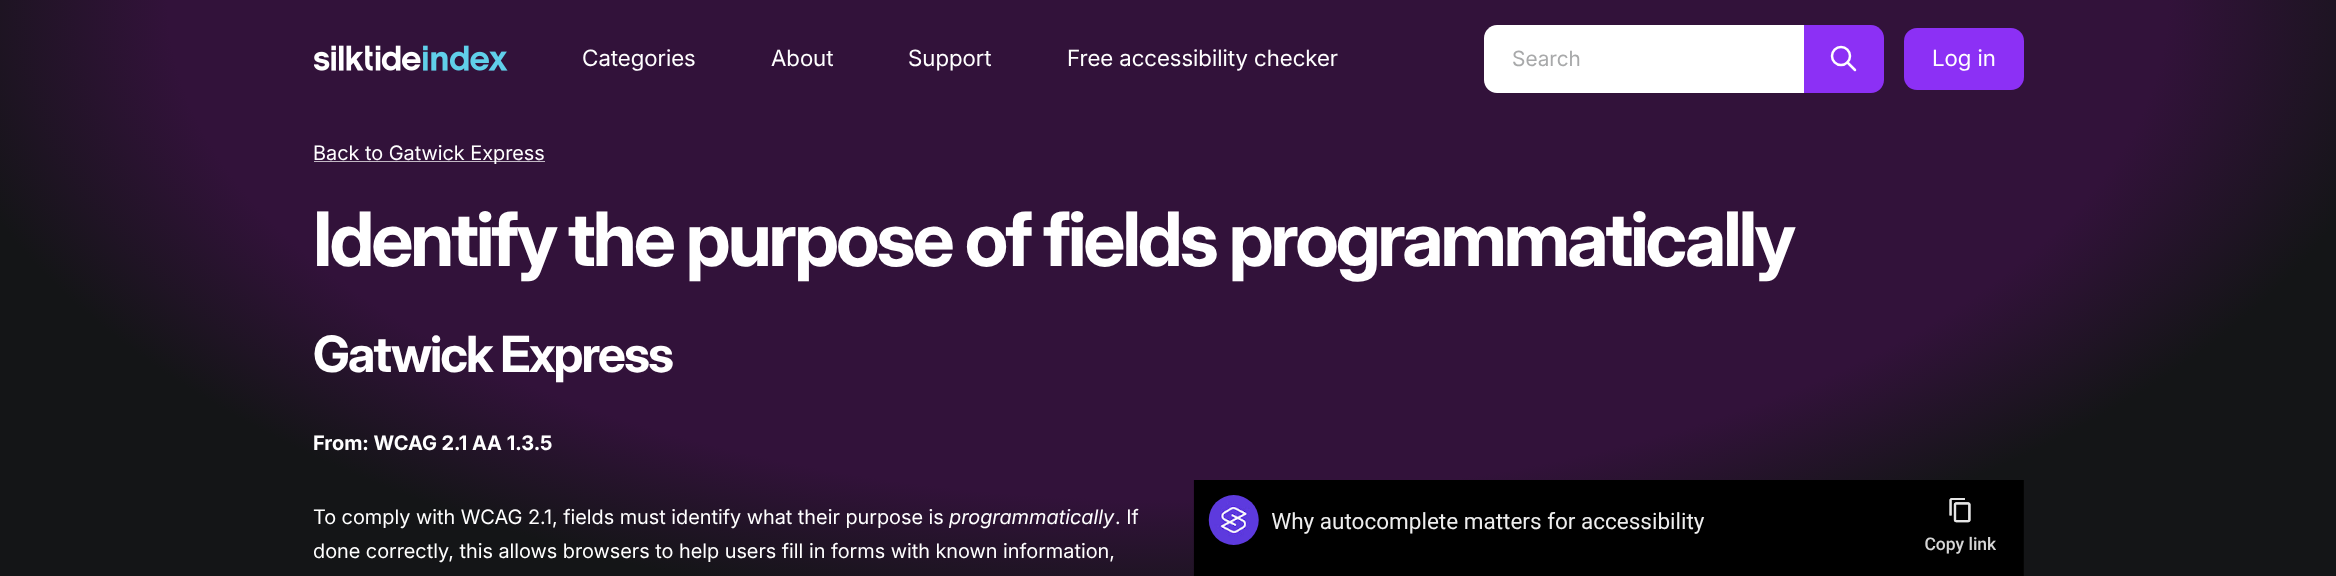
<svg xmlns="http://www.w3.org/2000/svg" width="2336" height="576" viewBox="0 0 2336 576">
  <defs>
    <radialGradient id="g1" gradientUnits="userSpaceOnUse" cx="0" cy="0" r="1" gradientTransform="matrix(1250 0 0 625 1168 0)"><stop offset="0" stop-color="#32123a"/><stop offset="0.8" stop-color="#32123a"/><stop offset="1" stop-color="#141517"/></radialGradient>
  </defs>
  <rect width="100%" height="100%" fill="#ffffff"/>
  <rect x="0" y="0" width="2336" height="576" fill="url(#g1)"/>
  <image x="314" y="45" width="194" height="26" href="img1.png"/>
  <text x="582" y="66" font-family="Inter" font-size="22.5" fill="#ffffff">Categories</text>
  <text x="771" y="66" font-family="Inter" font-size="22.5" fill="#ffffff">About</text>
  <text x="908" y="66" font-family="Inter" font-size="22.5" fill="#ffffff">Support</text>
  <text x="1067" y="66" font-family="Inter" font-size="22.5" fill="#ffffff">Free accessibility checker</text>
  <path d="M1497 25H1804V93H1497C1490 93 1484 87 1484 80V38C1484 31 1490 25 1497 25Z" fill="#ffffff"/>
  <text x="1512" y="66" font-family="'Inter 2'" font-size="21" fill="#a8a9aa">Search</text>
  <path d="M1804 25H1871C1878 25 1884 31 1884 38V80C1884 87 1878 93 1871 93H1804Z" fill="#8c30f5"/>
  <circle cx="1841" cy="56" r="9" fill="none" stroke="#ffffff" stroke-width="2.5"/>
  <path d="M1855 70L1847.5 62.5" fill="none" stroke="#ffffff" stroke-width="2.5" stroke-linecap="round" stroke-linejoin="round"/>
  <rect x="1904" y="28" width="120" height="62" rx="13" fill="#8c30f5"/>
  <text x="1932" y="66" font-family="Inter" font-size="22.5" fill="#ffffff">Log in</text>
  <rect x="314" y="161" width="231" height="1" fill="#c2b8c4"/>
  <text x="313" y="160" font-family="'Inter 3'" font-size="20" fill="#ffffff">Back to Gatwick Express</text>
  <text x="313" y="266" font-family="Inter" font-size="75" font-weight="bold" letter-spacing="-3" fill="#ffffff">Identify the purpose of fields programmatically</text>
  <text x="313" y="372" font-family="Inter" font-size="50" font-weight="bold" letter-spacing="-2" fill="#ffffff">Gatwick Express</text>
  <text x="313" y="450" font-family="'Inter 2'" font-size="20" font-weight="bold" fill="#ffffff">From: WCAG 2.1 AA 1.3.5</text>
  <text x="313" y="524" font-family="'Inter 3'" font-size="20" fill="#ffffff">To comply with WCAG 2.1, fields must identify what their purpose is</text>
  <text x="949" y="524" font-family="Inter" font-size="20" font-style="italic" fill="#ffffff">programmatically</text>
  <text x="1115" y="524" font-family="'Inter 3'" font-size="20" fill="#ffffff">. If</text>
  <text x="313" y="558" font-family="'Inter 3'" font-size="20" fill="#ffffff">done correctly, this allows browsers to help users fill in forms with known information,</text>
  <image x="1193" y="480" width="831" height="96" href="img2.png"/>
</svg>
